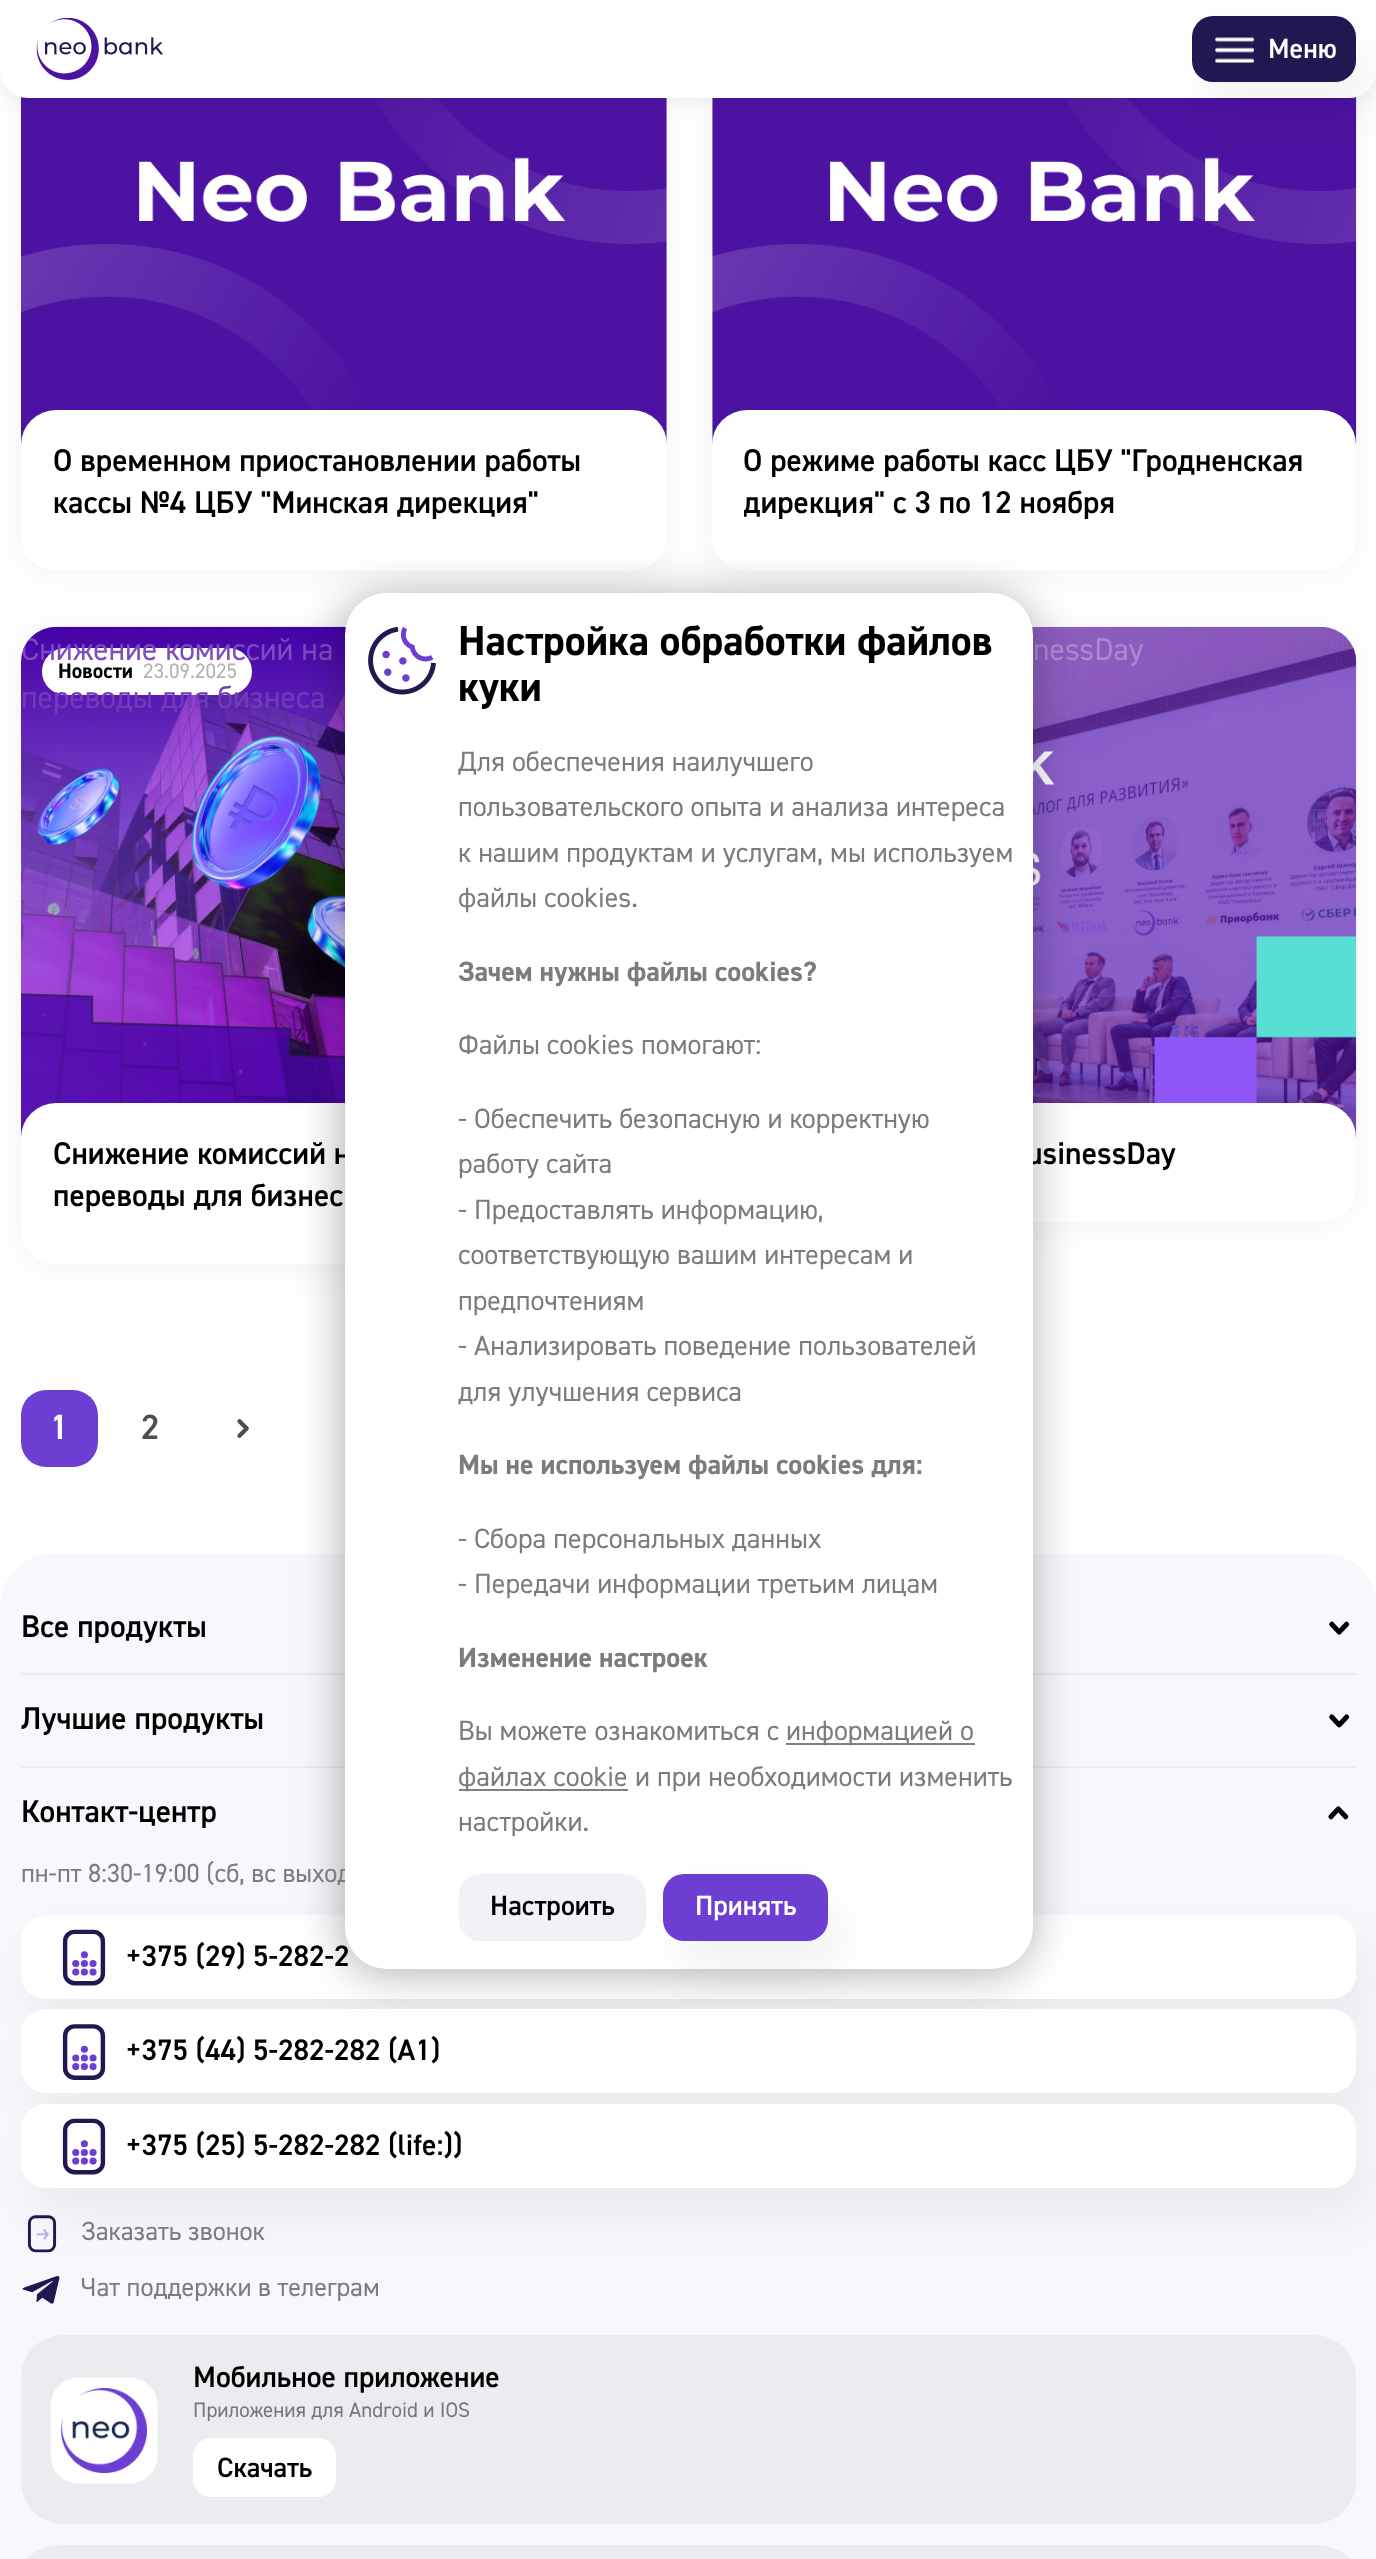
<svg xmlns="http://www.w3.org/2000/svg" width="1376" height="2559" viewBox="0 0 1376 2559">
  <defs>
    <filter id="blur1" x="-50%" y="-200%" width="200%" height="500%"><feGaussianBlur stdDeviation="17.5"/></filter>
    <filter id="blur2" x="-50%" y="-200%" width="200%" height="500%"><feGaussianBlur stdDeviation="9.5"/></filter>
    <filter id="blur3" x="-50%" y="-200%" width="200%" height="500%"><feGaussianBlur stdDeviation="23"/></filter>
    <clipPath id="clip1"><rect x="744" y="441" width="581" height="84"/></clipPath>
    <clipPath id="clip2"><rect x="21" y="627" width="646" height="637" rx="35"/></clipPath>
  </defs>
  <rect width="100%" height="100%" fill="#ffffff"/>
  <rect x="19" y="-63" width="646" height="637" rx="35" fill="#000000" fill-opacity="0.05" filter="url(#blur1)"/>
  <image x="21" y="97" width="646" height="348" href="img3.png"/>
  <rect x="21" y="410" width="646" height="161" rx="35" fill="#ffffff"/>
  <rect x="711" y="-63" width="644" height="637" rx="35" fill="#000000" fill-opacity="0.05" filter="url(#blur1)"/>
  <image x="712" y="96" width="645" height="349" href="img4.png"/>
  <rect x="0" y="0" width="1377" height="98" rx="28" fill="#000000" fill-opacity="0.08" filter="url(#blur2)"/>
  <path d="M0 0H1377V70C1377 85.5 1364.5 98 1349 98H28C12.5 98 0 85.5 0 70Z" fill="#ffffff"/>
  <image x="36" y="18" width="127" height="62" href="img1.png"/>
  <rect x="1206" y="44" width="164" height="66" rx="21" fill="#000000" fill-opacity="0.05" filter="url(#blur3)"/>
  <rect x="1192" y="16" width="164" height="66" rx="21" fill="#221750"/>
  <image x="1215" y="37" width="39" height="26" href="img2.png"/>
  <text x="1268" y="58" font-family="'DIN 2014'" font-size="28" font-weight="600" fill="#ffffff">Меню</text>
  <text x="53" y="471" font-family="'DIN 2014'" font-size="31.5" font-weight="600" fill="#000000">О временном приостановлении работы</text>
  <text x="53" y="513" font-family="'DIN 2014'" font-size="31.5" font-weight="600" fill="#000000">кассы №4 ЦБУ "Минская дирекция"</text>
  <rect x="712" y="410" width="644" height="161" rx="35" fill="#ffffff"/>
  <text x="743" y="471" font-family="'DIN 2014'" font-size="31.5" font-weight="600" fill="#000000">О режиме работы касс ЦБУ "Гродненская</text>
  <g clip-path="url(#clip1)">
    <text x="743" y="513" font-family="'DIN 2014'" font-size="31.5" font-weight="600" fill="#000000">дирекция" с 3 по 12 ноября</text>
  </g>
  <rect x="19" y="630" width="646" height="637" rx="35" fill="#000000" fill-opacity="0.05" filter="url(#blur1)"/>
  <image x="21" y="626" width="325" height="512" href="img5.png"/>
  <rect x="42" y="648" width="210" height="47" rx="23.5" fill="#ffffff"/>
  <g clip-path="url(#clip2)">
    <text x="21" y="660" font-family="'DIN 2014'" font-size="31.5" fill="#7b4cc1">Снижение комиссий на</text>
  </g>
  <text x="21" y="708" font-family="'DIN 2014'" font-size="31.5" fill="#713cbc">переводы для бизнеса</text>
  <text x="58" y="678" font-family="'DIN 2014'" font-size="21" font-weight="bold" fill="#000000">Новости</text>
  <text x="143" y="678" font-family="'DIN 2014'" font-size="21" fill="#b3b3b3">23.09.2025</text>
  <rect x="21" y="1103" width="646" height="161" rx="35" fill="#ffffff"/>
  <text x="53" y="1164" font-family="'DIN 2014'" font-size="31.5" font-weight="600" fill="#000000">Снижение комиссий н</text>
  <text x="53" y="1206" font-family="'DIN 2014'" font-size="31.5" font-weight="600" fill="#000000">переводы для бизнес</text>
  <rect x="711" y="630" width="644" height="595" rx="35" fill="#000000" fill-opacity="0.05" filter="url(#blur1)"/>
  <image x="1032" y="626" width="325" height="512" href="img6.png"/>
  <text x="1033" y="660" font-family="'DIN 2014'" font-size="31.5" fill="#ae89cf">nessDay</text>
  <rect x="712" y="1103" width="644" height="119" rx="35" fill="#ffffff"/>
  <text x="1026" y="1164" font-family="'DIN 2014'" font-size="31.5" font-weight="600" fill="#000000">usinessDay</text>
  <rect x="21" y="1390" width="77" height="77" rx="25" fill="#6c3fd2"/>
  <text x="50" y="1439" font-family="'DIN 2014'" font-size="35" font-weight="600" fill="#ffffff">1</text>
  <text x="141" y="1439" font-family="'DIN 2014'" font-size="35" font-weight="600" fill="#4d4d4d">2</text>
  <image x="237" y="1419" width="12" height="19" href="img7.png"/>
  <path d="M53 1554H1324C1353.5 1554 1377 1577.5 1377 1607V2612H0V1607C0 1577.5 23.5 1554 53 1554Z" fill="#f7f8fc"/>
  <rect x="21" y="1673" width="1335" height="2" fill="#ebecef"/>
  <rect x="21" y="1766" width="1335" height="2" fill="#ebecef"/>
  <rect x="35" y="1943" width="1335" height="84" rx="25" fill="#000000" fill-opacity="0.05" filter="url(#blur3)"/>
  <rect x="21" y="1915" width="1335" height="84" rx="25" fill="#ffffff"/>
  <image x="62" y="1929" width="44" height="57" href="img12.png"/>
  <rect x="35" y="2037" width="1335" height="84" rx="25" fill="#000000" fill-opacity="0.05" filter="url(#blur3)"/>
  <rect x="21" y="2009" width="1335" height="84" rx="25" fill="#ffffff"/>
  <rect x="343" y="597" width="688" height="1375" rx="42" fill="#000000" fill-opacity="0.32" filter="url(#blur3)"/>
  <text x="21" y="1882" font-family="'DIN 2014'" font-size="26.25" fill="#7c7c7e">пн-пт 8:30-19:00 (сб, вс выход</text>
  <text x="126" y="1966" font-family="'DIN 2014'" font-size="29.75" font-weight="600" fill="#000000">+375 (29) 5-282-2</text>
  <rect x="345" y="593" width="688" height="1376" rx="42" fill="#ffffff"/>
  <image x="368" y="626" width="68" height="69" href="img8.png"/>
  <text x="458" y="655" font-family="'DIN 2014'" font-size="42" font-weight="bold" fill="#000000">Настройка обработки файлов</text>
  <text x="458" y="701" font-family="'DIN 2014'" font-size="42" font-weight="bold" fill="#000000">куки</text>
  <text x="458" y="771" font-family="'DIN 2014'" font-size="28" fill="#7c7c7e">Для обеспечения наилучшего</text>
  <text x="458" y="816" font-family="'DIN 2014'" font-size="28" fill="#7c7c7e">пользовательского опыта и анализа интереса</text>
  <text x="458" y="862" font-family="'DIN 2014'" font-size="28" fill="#7c7c7e">к нашим продуктам и услугам, мы используем</text>
  <text x="458" y="907" font-family="'DIN 2014'" font-size="28" fill="#7c7c7e">файлы cookies.</text>
  <text x="458" y="981" font-family="'DIN 2014'" font-size="28" font-weight="bold" fill="#7c7c7e">Зачем нужны файлы cookies?</text>
  <text x="458" y="1054" font-family="'DIN 2014'" font-size="28" fill="#7c7c7e">Файлы cookies помогают:</text>
  <text x="458" y="1128" font-family="'DIN 2014'" font-size="28" fill="#7c7c7e">- Обеспечить безопасную и корректную</text>
  <text x="458" y="1173" font-family="'DIN 2014'" font-size="28" fill="#7c7c7e">работу сайта</text>
  <text x="458" y="1219" font-family="'DIN 2014'" font-size="28" fill="#7c7c7e">- Предоставлять информацию,</text>
  <text x="458" y="1264" font-family="'DIN 2014'" font-size="28" fill="#7c7c7e">соответствующую вашим интересам и</text>
  <text x="458" y="1310" font-family="'DIN 2014'" font-size="28" fill="#7c7c7e">предпочтениям</text>
  <text x="458" y="1355" font-family="'DIN 2014'" font-size="28" fill="#7c7c7e">- Анализировать поведение пользователей</text>
  <text x="458" y="1401" font-family="'DIN 2014'" font-size="28" fill="#7c7c7e">для улучшения сервиса</text>
  <text x="458" y="1474" font-family="'DIN 2014'" font-size="28" font-weight="bold" fill="#7c7c7e">Мы не используем файлы cookies для:</text>
  <text x="458" y="1548" font-family="'DIN 2014'" font-size="28" fill="#7c7c7e">- Сбора персональных данных</text>
  <text x="458" y="1593" font-family="'DIN 2014'" font-size="28" fill="#7c7c7e">- Передачи информации третьим лицам</text>
  <text x="458" y="1667" font-family="'DIN 2014'" font-size="28" font-weight="bold" fill="#7c7c7e">Изменение настроек</text>
  <text x="458" y="1740" font-family="'DIN 2014'" font-size="28" fill="#7c7c7e">Вы можете ознакомиться с</text>
  <rect x="786" y="1743" width="189" height="2" fill="#808080"/>
  <text x="786" y="1740" font-family="'DIN 2014'" font-size="28" fill="#7c7c7e">информацией о</text>
  <rect x="459" y="1789" width="169" height="2" fill="#808080"/>
  <text x="458" y="1786" font-family="'DIN 2014'" font-size="28" fill="#7c7c7e">файлах cookie</text>
  <text x="635" y="1786" font-family="'DIN 2014'" font-size="28" fill="#7c7c7e">и при необходимости изменить</text>
  <text x="458" y="1831" font-family="'DIN 2014'" font-size="28" fill="#7c7c7e">настройки.</text>
  <rect x="459" y="1874" width="187" height="67" rx="21" fill="#f1f2f6"/>
  <text x="490" y="1915" font-family="'DIN 2014'" font-size="28" font-weight="600" fill="#000000">Настроить</text>
  <rect x="677" y="1902" width="165" height="67" rx="21" fill="#000000" fill-opacity="0.05" filter="url(#blur3)"/>
  <rect x="663" y="1874" width="165" height="67" rx="21" fill="#6c3fd2"/>
  <text x="695" y="1915" font-family="'DIN 2014'" font-size="28" font-weight="600" fill="#ffffff">Принять</text>
  <text x="21" y="1637" font-family="'DIN 2014'" font-size="31.5" font-weight="600" fill="#000000">Все продукты</text>
  <image x="1329" y="1621" width="21" height="14" href="img9.png"/>
  <text x="21" y="1729" font-family="'DIN 2014'" font-size="31.5" font-weight="600" fill="#000000">Лучшие продукты</text>
  <image x="1329" y="1714" width="21" height="14" href="img10.png"/>
  <text x="21" y="1822" font-family="'DIN 2014'" font-size="31.5" font-weight="600" fill="#000000">Контакт-центр</text>
  <image x="1328" y="1806" width="21" height="14" href="img11.png"/>
  <image x="62" y="2024" width="44" height="56" href="img13.png"/>
  <text x="126" y="2060" font-family="'DIN 2014'" font-size="29.75" font-weight="600" fill="#000000">+375 (44) 5-282-282 (А1)</text>
  <image x="27" y="2215" width="30" height="38" href="img15.png"/>
  <image x="22" y="2276" width="38" height="28" href="img16.png"/>
  <rect x="35" y="2132" width="1335" height="84" rx="25" fill="#000000" fill-opacity="0.05" filter="url(#blur3)"/>
  <rect x="21" y="2104" width="1335" height="84" rx="25" fill="#ffffff"/>
  <image x="62" y="2118" width="44" height="57" href="img14.png"/>
  <text x="126" y="2155" font-family="'DIN 2014'" font-size="29.75" font-weight="600" fill="#000000">+375 (25) 5-282-282 (life:))</text>
  <text x="81" y="2240" font-family="'DIN 2014'" font-size="26.25" fill="#7c7c7e">Заказать звонок</text>
  <text x="81" y="2296" font-family="'DIN 2014'" font-size="26.25" fill="#7c7c7e">Чат поддержки в телеграм</text>
  <rect x="21" y="2335" width="1335" height="189" rx="42" fill="#ebecef"/>
  <image x="50" y="2377" width="108" height="107" href="img17.png"/>
  <text x="193" y="2387" font-family="'DIN 2014'" font-size="29.75" font-weight="600" fill="#000000">Мобильное приложение</text>
  <text x="193" y="2417" font-family="'DIN 2014'" font-size="21" fill="#767678">Приложения для Android и IOS</text>
  <rect x="193" y="2438" width="143" height="59" rx="18" fill="#ffffff"/>
  <text x="217" y="2477" font-family="'DIN 2014'" font-size="28" font-weight="600" fill="#000000">Скачать</text>
  <rect x="21" y="2545" width="1335" height="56" rx="42" fill="#ebecef"/>
</svg>
